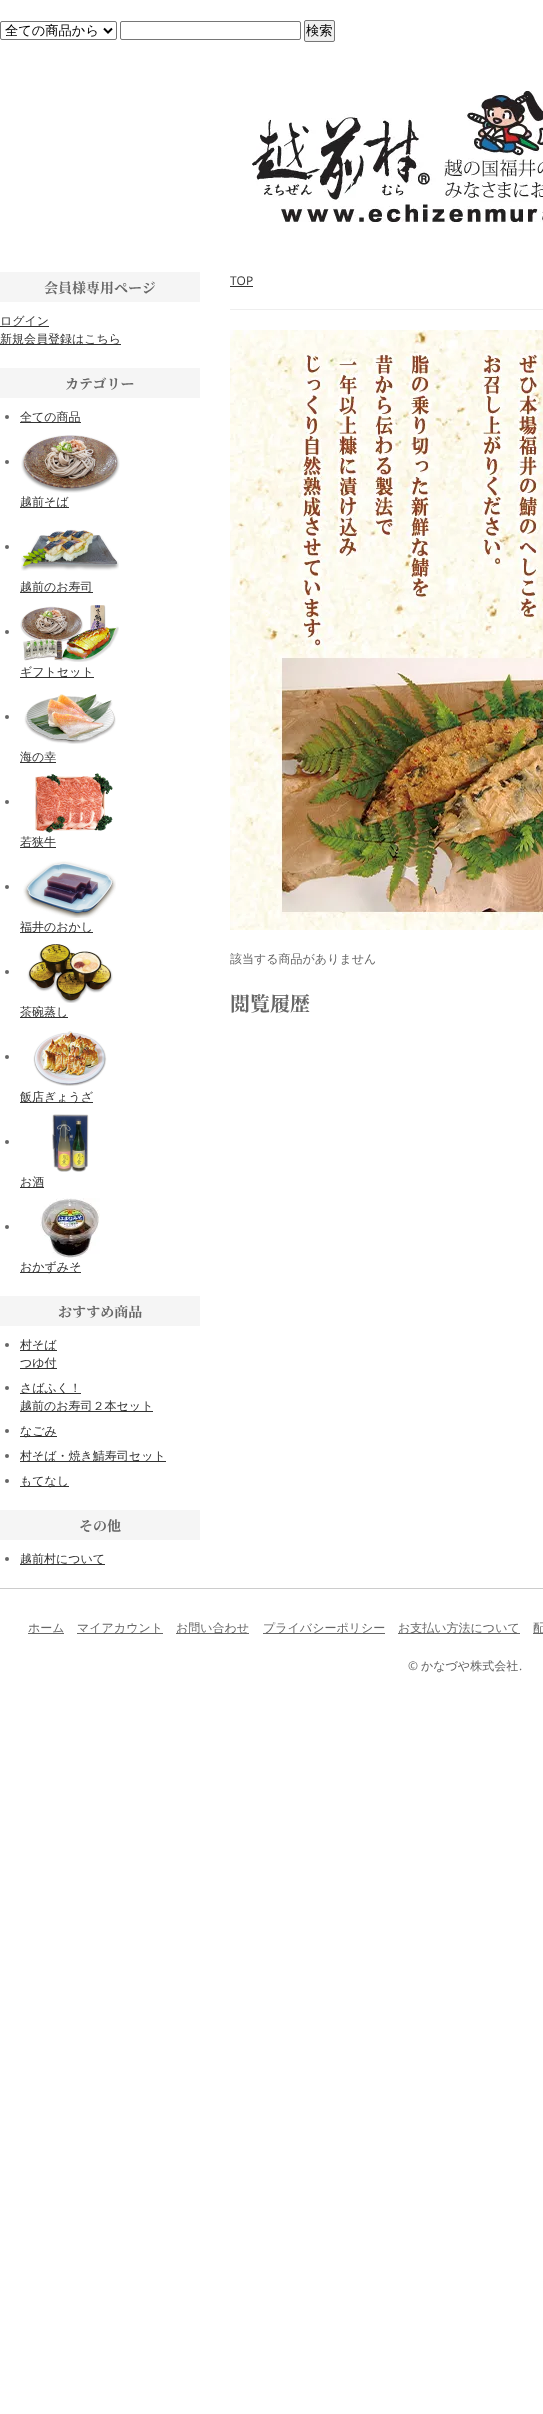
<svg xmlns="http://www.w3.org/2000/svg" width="543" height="2414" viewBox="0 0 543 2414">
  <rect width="100%" height="100%" fill="#ffffff"/>
  <rect x="0.5" y="21.5" width="116" height="18" rx="1.5" fill="none" stroke="#767676"/>
  <path d="M104 28.5L108 32.5L112 28.5" fill="none" stroke="#000000" stroke-width="2"/>
  <text x="5" y="35" font-family="WenQuanYi Zen Hei" font-size="13.25" font-weight="500" fill="#000000">全ての商品から</text>
  <rect x="120.5" y="21.5" width="180" height="18" rx="1.5" fill="none" stroke="#767676"/>
  <rect x="304.5" y="20.5" width="30" height="21" rx="1.5" fill="#efefef" stroke="#767676"/>
  <text x="306" y="35" font-family="WenQuanYi Zen Hei" font-size="13.25" font-weight="500" fill="#000000">検索</text>
  <image x="252" y="90" width="291" height="132" href="img1.png"/>
  <rect x="0" y="272" width="200" height="30" fill="#f5f5f5"/>
  <text x="44" y="293" font-family="Noto Serif JP" font-size="14" font-weight="bold" fill="#666666">会員様専用ページ</text>
  <rect x="0" y="326" width="49" height="1" fill="#333333"/>
  <text x="0" y="325" font-family="WenQuanYi Zen Hei" font-size="12" font-weight="500" fill="#333333">ログイン</text>
  <rect x="0" y="344" width="121" height="1" fill="#333333"/>
  <text x="0" y="343" font-family="WenQuanYi Zen Hei" font-size="12" font-weight="500" fill="#333333">新規会員登録はこちら</text>
  <rect x="0" y="368" width="200" height="30" fill="#f5f5f5"/>
  <text x="65" y="389" font-family="Noto Serif JP" font-size="14" font-weight="bold" fill="#666666">カテゴリー</text>
  <circle cx="7" cy="417" r="2" fill="#666666"/>
  <rect x="20" y="422" width="61" height="1" fill="#333333"/>
  <text x="20" y="421" font-family="WenQuanYi Zen Hei" font-size="12" font-weight="500" fill="#333333">全ての商品</text>
  <circle cx="7" cy="462" r="2" fill="#666666"/>
  <image x="21" y="435" width="99" height="58" href="img2.png"/>
  <rect x="20" y="507" width="49" height="1" fill="#333333"/>
  <text x="20" y="506" font-family="WenQuanYi Zen Hei" font-size="12" font-weight="500" fill="#333333">越前そば</text>
  <circle cx="7" cy="547" r="2" fill="#666666"/>
  <image x="21" y="529" width="98" height="42" href="img3.png"/>
  <rect x="20" y="592" width="73" height="1" fill="#333333"/>
  <text x="20" y="591" font-family="WenQuanYi Zen Hei" font-size="12" font-weight="500" fill="#333333">越前のお寿司</text>
  <circle cx="7" cy="632" r="2" fill="#666666"/>
  <image x="20" y="605" width="99" height="57" href="img4.png"/>
  <rect x="20" y="677" width="74" height="1" fill="#333333"/>
  <text x="20" y="676" font-family="WenQuanYi Zen Hei" font-size="12" font-weight="500" fill="#333333">ギフトセット</text>
  <circle cx="7" cy="717" r="2" fill="#666666"/>
  <image x="24" y="694" width="92" height="50" href="img5.png"/>
  <rect x="20" y="762" width="36" height="1" fill="#333333"/>
  <text x="20" y="761" font-family="WenQuanYi Zen Hei" font-size="12" font-weight="500" fill="#333333">海の幸</text>
  <circle cx="7" cy="802" r="2" fill="#666666"/>
  <image x="35" y="773" width="78" height="60" href="img6.png"/>
  <rect x="20" y="847" width="36" height="1" fill="#333333"/>
  <text x="20" y="846" font-family="WenQuanYi Zen Hei" font-size="12" font-weight="500" fill="#333333">若狭牛</text>
  <circle cx="7" cy="887" r="2" fill="#666666"/>
  <image x="23" y="861" width="93" height="57" href="img7.png"/>
  <rect x="20" y="932" width="73" height="1" fill="#333333"/>
  <text x="20" y="931" font-family="WenQuanYi Zen Hei" font-size="12" font-weight="500" fill="#333333">福井のおかし</text>
  <circle cx="7" cy="972" r="2" fill="#666666"/>
  <image x="27" y="944" width="86" height="59" href="img8.png"/>
  <rect x="20" y="1017" width="48" height="1" fill="#333333"/>
  <text x="20" y="1016" font-family="WenQuanYi Zen Hei" font-size="12" font-weight="500" fill="#333333">茶碗蒸し</text>
  <circle cx="7" cy="1057" r="2" fill="#666666"/>
  <image x="33" y="1031" width="74" height="55" href="img9.png"/>
  <rect x="20" y="1102" width="73" height="1" fill="#333333"/>
  <text x="20" y="1101" font-family="WenQuanYi Zen Hei" font-size="12" font-weight="500" fill="#333333">飯店ぎょうざ</text>
  <circle cx="7" cy="1142" r="2" fill="#666666"/>
  <image x="52" y="1114" width="37" height="58" href="img10.png"/>
  <rect x="20" y="1187" width="24" height="1" fill="#333333"/>
  <text x="20" y="1186" font-family="WenQuanYi Zen Hei" font-size="12" font-weight="500" fill="#333333">お酒</text>
  <circle cx="7" cy="1227" r="2" fill="#666666"/>
  <image x="40" y="1198" width="60" height="60" href="img11.png"/>
  <rect x="20" y="1272" width="61" height="1" fill="#333333"/>
  <text x="20" y="1271" font-family="WenQuanYi Zen Hei" font-size="12" font-weight="500" fill="#333333">おかずみそ</text>
  <rect x="0" y="1296" width="200" height="30" fill="#f5f5f5"/>
  <text x="58" y="1317" font-family="Noto Serif JP" font-size="14" font-weight="bold" fill="#666666">おすすめ商品</text>
  <circle cx="7" cy="1345" r="2" fill="#666666"/>
  <rect x="20" y="1350" width="37" height="1" fill="#333333"/>
  <text x="20" y="1349" font-family="WenQuanYi Zen Hei" font-size="12" font-weight="500" fill="#333333">村そば</text>
  <rect x="20" y="1368" width="37" height="1" fill="#333333"/>
  <text x="20" y="1367" font-family="WenQuanYi Zen Hei" font-size="12" font-weight="500" fill="#333333">つゆ付</text>
  <circle cx="7" cy="1388" r="2" fill="#666666"/>
  <rect x="20" y="1393" width="61" height="1" fill="#333333"/>
  <text x="20" y="1392" font-family="WenQuanYi Zen Hei" font-size="12" font-weight="500" fill="#333333">さばふく！</text>
  <rect x="20" y="1411" width="133" height="1" fill="#333333"/>
  <text x="20" y="1410" font-family="WenQuanYi Zen Hei" font-size="12" font-weight="500" fill="#333333">越前のお寿司２本セット</text>
  <circle cx="7" cy="1431" r="2" fill="#666666"/>
  <rect x="20" y="1436" width="37" height="1" fill="#333333"/>
  <text x="20" y="1435" font-family="WenQuanYi Zen Hei" font-size="12" font-weight="500" fill="#333333">なごみ</text>
  <circle cx="7" cy="1456" r="2" fill="#666666"/>
  <rect x="20" y="1461" width="146" height="1" fill="#333333"/>
  <text x="20" y="1460" font-family="WenQuanYi Zen Hei" font-size="12" font-weight="500" fill="#333333">村そば・焼き鯖寿司セット</text>
  <circle cx="7" cy="1481" r="2" fill="#666666"/>
  <rect x="20" y="1486" width="49" height="1" fill="#333333"/>
  <text x="20" y="1485" font-family="WenQuanYi Zen Hei" font-size="12" font-weight="500" fill="#333333">もてなし</text>
  <rect x="0" y="1510" width="200" height="30" fill="#f5f5f5"/>
  <text x="79" y="1531" font-family="Noto Serif JP" font-size="14" font-weight="bold" fill="#666666">その他</text>
  <circle cx="7" cy="1559" r="2" fill="#666666"/>
  <rect x="20" y="1564" width="85" height="1" fill="#333333"/>
  <text x="20" y="1563" font-family="WenQuanYi Zen Hei" font-size="12" font-weight="500" fill="#333333">越前村について</text>
  <rect x="230" y="309" width="313" height="1" fill="#eeeeee"/>
  <text x="230" y="285" font-family="Open Sans" font-size="12" fill="#333333">TOP</text>
  <rect x="230" y="286" width="23" height="1" fill="#333333"/>
  <image x="230" y="330" width="313" height="600" href="img12.png"/>
  <text x="230" y="963" font-family="WenQuanYi Zen Hei" font-size="12" font-weight="500" fill="#666666">該当する商品がありません</text>
  <text x="230" y="1011" font-family="Noto Serif JP" font-size="20" font-weight="bold" fill="#666666">閲覧履歴</text>
  <rect x="0" y="1588" width="543" height="1" fill="#cccccc"/>
  <rect x="28" y="1633" width="36" height="1" fill="#666666"/>
  <text x="28" y="1632" font-family="WenQuanYi Zen Hei" font-size="12" font-weight="500" fill="#666666">ホーム</text>
  <rect x="77" y="1633" width="86" height="1" fill="#666666"/>
  <text x="77" y="1632" font-family="WenQuanYi Zen Hei" font-size="12" font-weight="500" fill="#666666">マイアカウント</text>
  <rect x="176" y="1633" width="73" height="1" fill="#666666"/>
  <text x="176" y="1632" font-family="WenQuanYi Zen Hei" font-size="12" font-weight="500" fill="#666666">お問い合わせ</text>
  <rect x="263" y="1633" width="122" height="1" fill="#666666"/>
  <text x="263" y="1632" font-family="WenQuanYi Zen Hei" font-size="12" font-weight="500" fill="#666666">プライバシーポリシー</text>
  <rect x="398" y="1633" width="122" height="1" fill="#666666"/>
  <text x="398" y="1632" font-family="WenQuanYi Zen Hei" font-size="12" font-weight="500" fill="#666666">お支払い方法について</text>
  <rect x="533" y="1633" width="10" height="1" fill="#666666"/>
  <text x="533" y="1632" font-family="WenQuanYi Zen Hei" font-size="12" font-weight="500" fill="#666666">配</text>
  <text x="408" y="1670" font-family="Open Sans" font-size="12" fill="#666666">©</text>
  <text x="421" y="1670" font-family="WenQuanYi Zen Hei" font-size="12" font-weight="500" fill="#666666">かなづや株式会社</text>
  <text x="519" y="1670" font-family="Open Sans" font-size="12" fill="#666666">.</text>
</svg>
